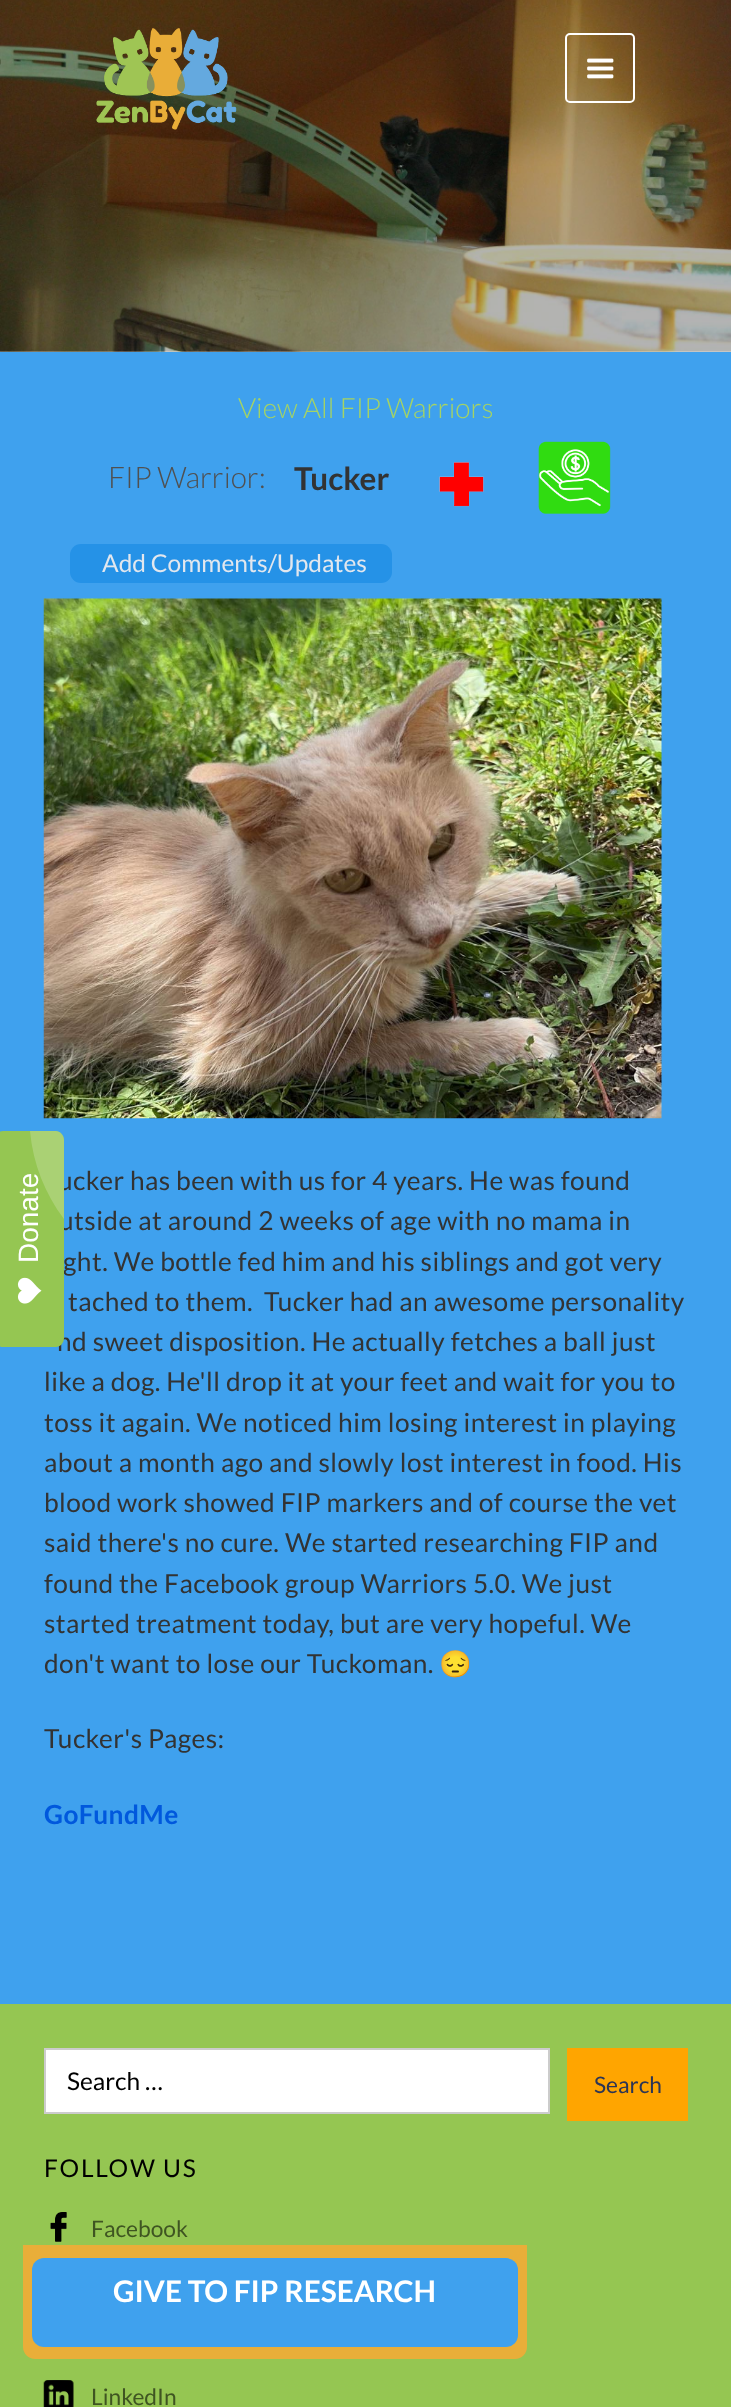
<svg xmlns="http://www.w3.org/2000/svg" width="731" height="2407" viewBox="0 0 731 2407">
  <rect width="100%" height="100%" fill="#ffffff"/>
  <image x="0" y="0" width="731" height="352" href="img1.png"/>
  <rect x="0" y="352" width="731" height="1652" fill="#3fa1ee"/>
  <text x="58" y="1190" font-family="Lato" font-size="26.25" letter-spacing="0.45" fill="#333333">ucker has been with us for 4 years. He was found</text>
  <text x="59" y="1230" font-family="Lato" font-size="26.25" letter-spacing="0.45" fill="#333333">utside at around 2 weeks of age with no mama in</text>
  <text x="63" y="1271" font-family="Lato" font-size="26.25" letter-spacing="0.45" fill="#333333">ght. We bottle fed him and his siblings and got very</text>
  <text x="57" y="1351" font-family="Lato" font-size="26.25" letter-spacing="0.45" fill="#333333">nd sweet disposition. He actually fetches a ball just</text>
  <path d="M-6 1338V1140C-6 1135-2 1131 3 1131H56C60 1131 64 1135 64 1140V1338C64 1343 60 1347 56 1347H3C-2 1347-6 1343-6 1338Z" fill="#95c652"/>
  <text x="38" y="1263" transform="rotate(-90 38 1263)" font-family="Liberation Sans" font-size="28" fill="#ffffff">Donate</text>
  <path d="M64 1219C45 1194 33 1164 30 1131H56C60 1131 64 1135 64 1140Z" fill="#ffffff" fill-opacity="0.2"/>
  <image x="17" y="1277" width="25" height="27" href="img2.png"/>
  <text x="238" y="418" font-family="Lato" font-size="28" font-weight="300" fill="#a4d365">View All FIP Warriors</text>
  <text x="108" y="488" font-family="Lato" font-size="29.75" font-weight="300" fill="#505050">FIP Warrior:</text>
  <text x="294" y="490" font-family="Lato" font-size="31.5" font-weight="bold" fill="#333333">Tucker</text>
  <image x="439" y="462" width="45" height="45" href="img3.png"/>
  <image x="538" y="441" width="73" height="73" href="img4.png"/>
  <rect x="70" y="544" width="322" height="39" rx="11" fill="#2592e7"/>
  <text x="102" y="572" font-family="Lato" font-size="24.5" fill="#e2e7ee">Add Comments/Updates</text>
  <image x="43" y="598" width="619" height="521" href="img5.png"/>
  <text x="68" y="1311" font-family="Lato" font-size="26.25" letter-spacing="0.45" fill="#333333" xml:space="preserve">tached to them.  Tucker had an awesome personality</text>
  <text x="44" y="1391" font-family="Lato" font-size="26.25" letter-spacing="0.45" fill="#333333">like a dog. He'll drop it at your feet and wait for you to</text>
  <text x="44" y="1432" font-family="Lato" font-size="26.25" letter-spacing="0.45" fill="#333333">toss it again. We noticed him losing interest in playing</text>
  <text x="44" y="1472" font-family="Lato" font-size="26.25" letter-spacing="0.45" fill="#333333">about a month ago and slowly lost interest in food. His</text>
  <text x="44" y="1512" font-family="Lato" font-size="26.25" letter-spacing="0.45" fill="#333333">blood work showed FIP markers and of course the vet</text>
  <text x="44" y="1552" font-family="Lato" font-size="26.25" letter-spacing="0.45" fill="#333333">said there's no cure. We started researching FIP and</text>
  <text x="44" y="1593" font-family="Lato" font-size="26.25" letter-spacing="0.45" fill="#333333">found the Facebook group Warriors 5.0. We just</text>
  <text x="44" y="1633" font-family="Lato" font-size="26.25" letter-spacing="0.45" fill="#333333">started treatment today, but are very hopeful. We</text>
  <text x="44" y="1673" font-family="Lato" font-size="26.25" letter-spacing="0.45" fill="#333333">don't want to lose our Tuckoman.</text>
  <text x="439" y="1673" font-family="Noto Color Emoji" font-size="26.25" letter-spacing="0.45" fill="#333333">😔</text>
  <text x="44" y="1748" font-family="Lato" font-size="26.25" letter-spacing="0.45" fill="#333333">Tucker's Pages:</text>
  <text x="44" y="1824" font-family="Lato" font-size="26.25" font-weight="bold" letter-spacing="0.45" fill="#0058dd">GoFundMe</text>
  <rect x="0" y="2004" width="731" height="403" fill="#95c652"/>
  <rect x="45" y="2049" width="504" height="64" fill="#ffffff" stroke="#cccccc" stroke-width="2"/>
  <text x="67" y="2090" font-family="Lato" font-size="24.5" fill="#000000">Search …</text>
  <rect x="567" y="2048" width="121" height="73" fill="#ffa500"/>
  <text x="594" y="2093" font-family="Lato" font-size="22.75" fill="#2c3555">Search</text>
  <text x="44" y="2177" font-family="Lato" font-size="24.5" letter-spacing="1.75" fill="#000000">FOLLOW US</text>
  <image x="50" y="2212" width="17" height="30" href="img6.png"/>
  <text x="91" y="2237" font-family="Lato" font-size="22.75" fill="#3f5522">Facebook</text>
  <image x="43" y="2380" width="31" height="27" href="img7.png"/>
  <text x="91" y="2405" font-family="Lato" font-size="22.75" fill="#3f5522">LinkedIn</text>
  <image x="96" y="28" width="141" height="102" href="img8.png"/>
  <rect x="566" y="34" width="68" height="68" rx="4" fill="none" stroke="#ffffff" stroke-width="2"/>
  <image x="587" y="58" width="27" height="21" href="img9.png"/>
  <path d="M23 2245H527V2347C527 2353.5 521.5 2359 515 2359H35C28.5 2359 23 2353.5 23 2347Z" fill="#e9ae39"/>
  <rect x="32" y="2258" width="486" height="89" rx="12" fill="#3fa1ee"/>
  <text x="113" y="2302" font-family="Lato" font-size="29.75" font-weight="bold" fill="#ffffff">GIVE TO FIP RESEARCH</text>
</svg>
